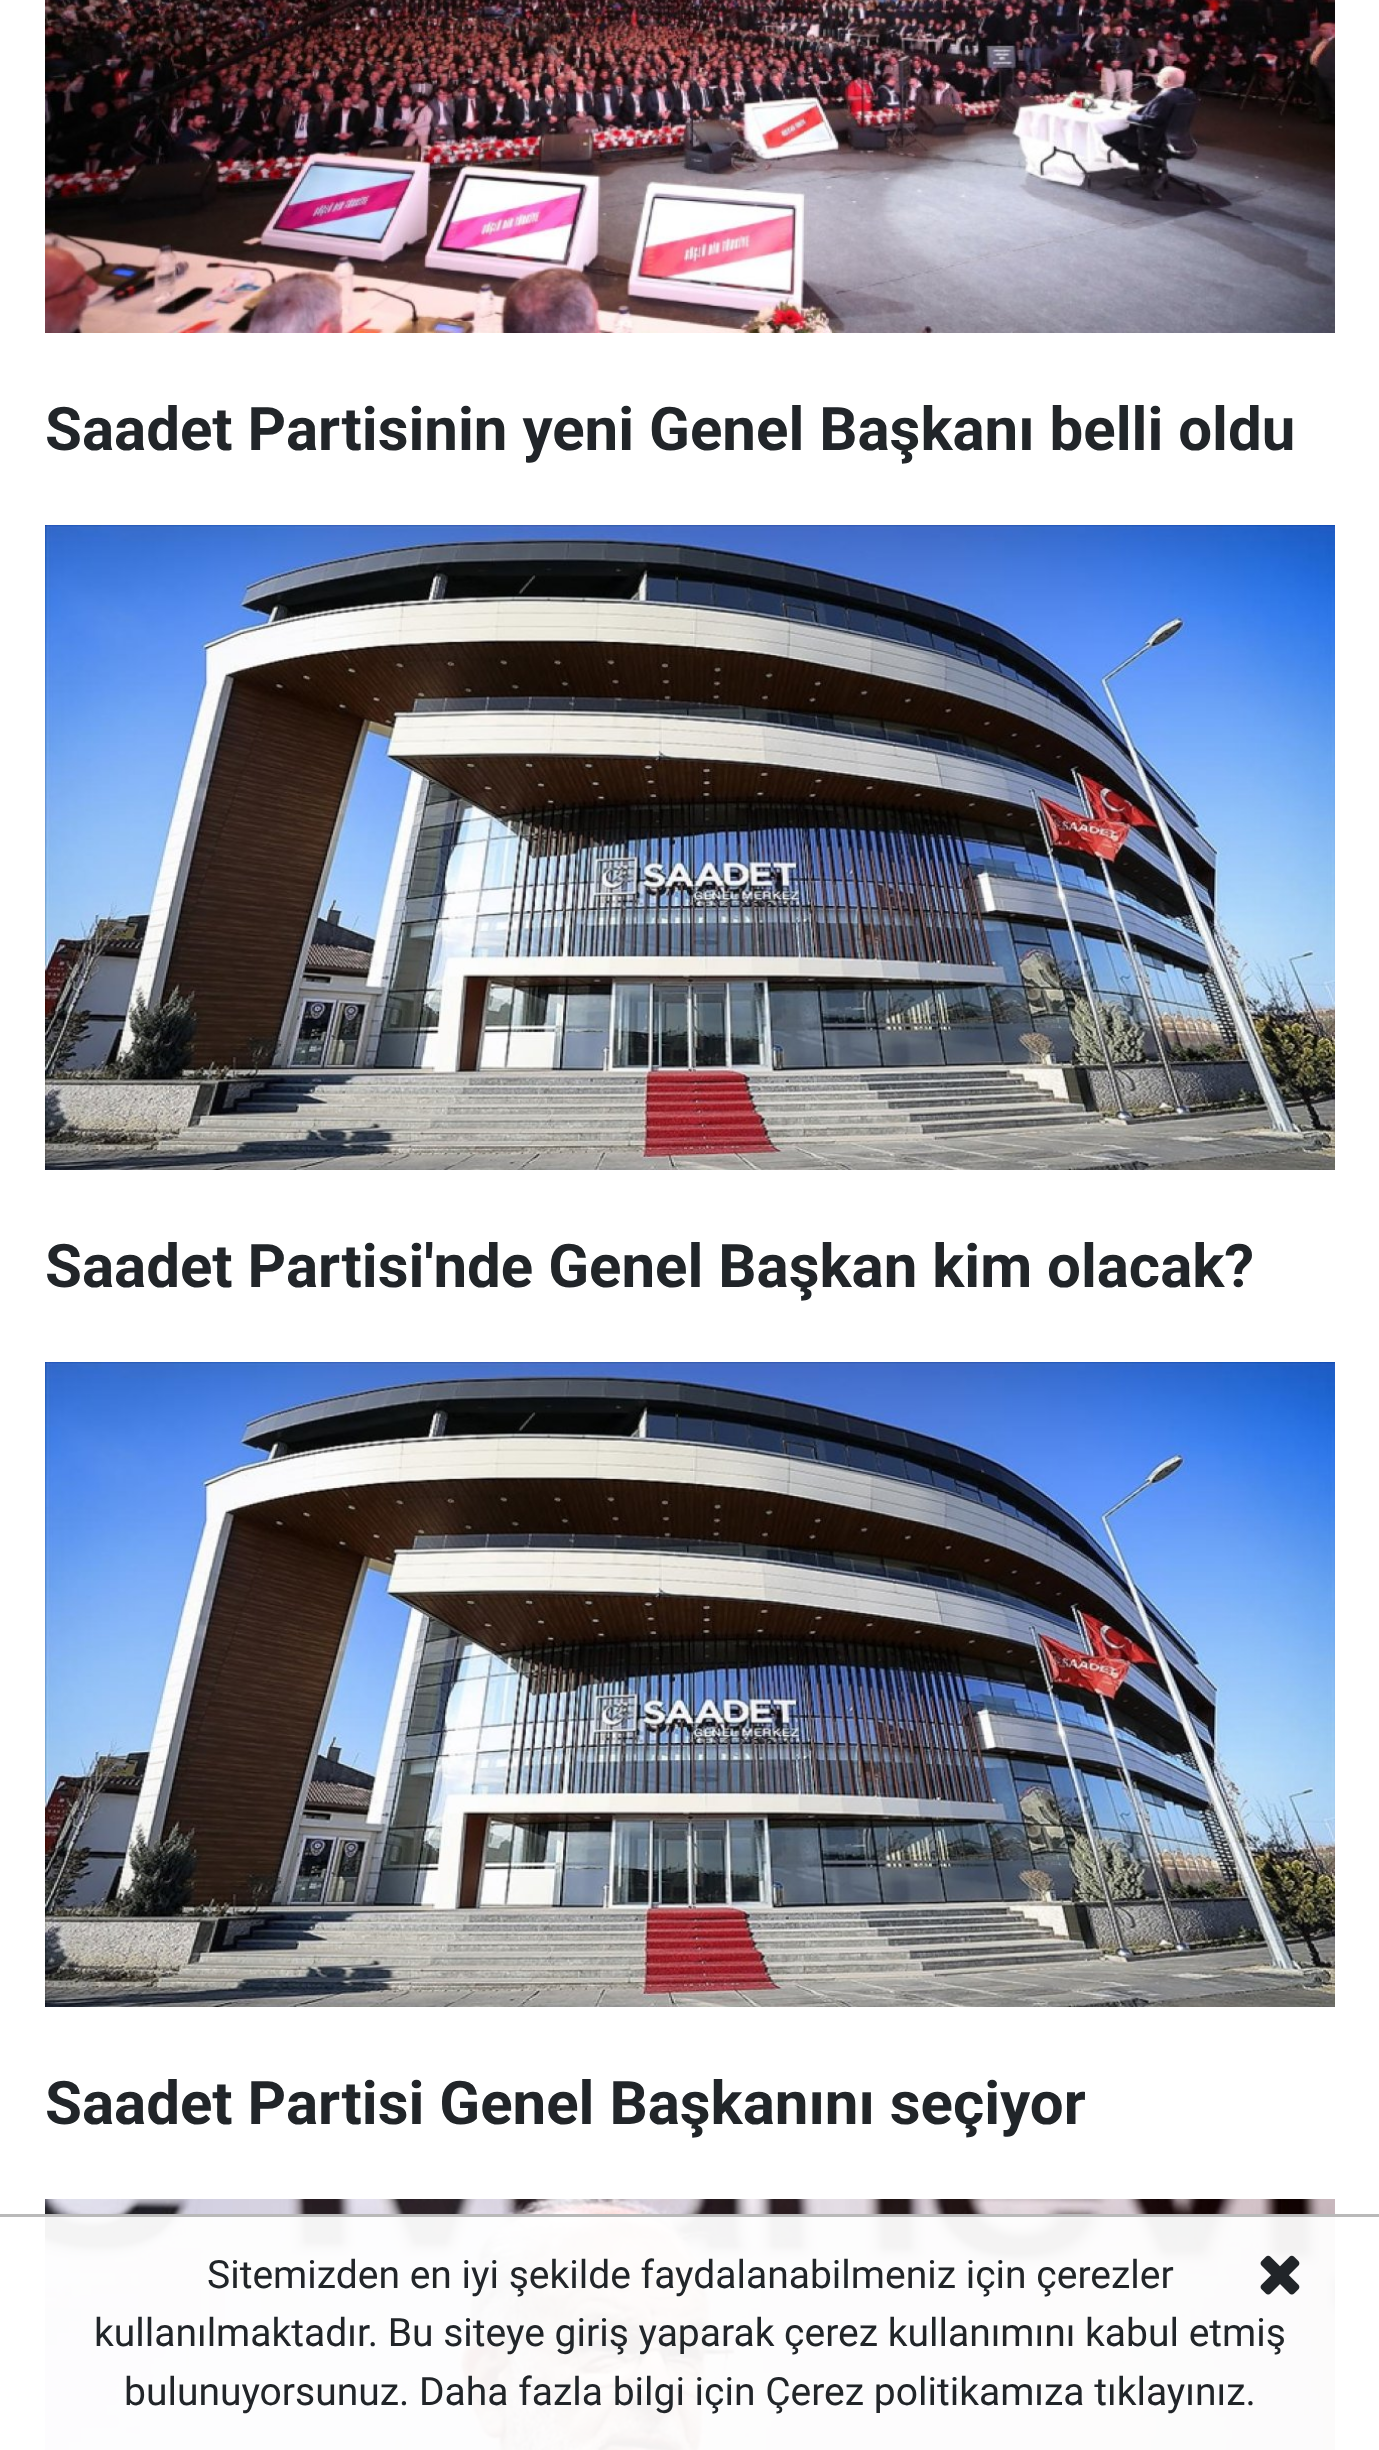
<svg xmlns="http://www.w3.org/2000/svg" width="1379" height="2450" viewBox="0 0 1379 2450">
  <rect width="100%" height="100%" fill="#ffffff"/>
  <image x="45" y="0" width="1290" height="333" href="img1.png"/>
  <text x="45" y="450" font-family="Roboto" font-size="60" font-weight="bold" fill="#212529">Saadet Partisinin yeni Genel Başkanı belli oldu</text>
  <image x="45" y="525" width="1290" height="645" href="img2.png"/>
  <text x="45" y="1287" font-family="Roboto" font-size="60" font-weight="bold" fill="#212529">Saadet Partisi'nde Genel Başkan kim olacak?</text>
  <image x="45" y="1362" width="1290" height="645" href="img2.png"/>
  <text x="45" y="2124" font-family="Roboto" font-size="60" font-weight="bold" fill="#212529">Saadet Partisi Genel Başkanını seçiyor</text>
  <image x="45" y="2199" width="1290" height="251" href="img3.png"/>
  <rect x="0" y="2214" width="1379" height="3" fill="#b9b9b9"/>
  <image x="1260" y="2255" width="40" height="40" href="img4.png"/>
  <text x="207" y="2288" font-family="Roboto" font-size="39" fill="#212529">Sitemizden en iyi şekilde faydalanabilmeniz için çerezler</text>
  <text x="94" y="2346" font-family="Roboto" font-size="39" fill="#212529">kullanılmaktadır. Bu siteye giriş yaparak çerez kullanımını kabul etmiş</text>
  <text x="124" y="2405" font-family="Roboto" font-size="39" fill="#212529">bulunuyorsunuz. Daha fazla bilgi için Çerez politikamıza tıklayınız.</text>
</svg>
